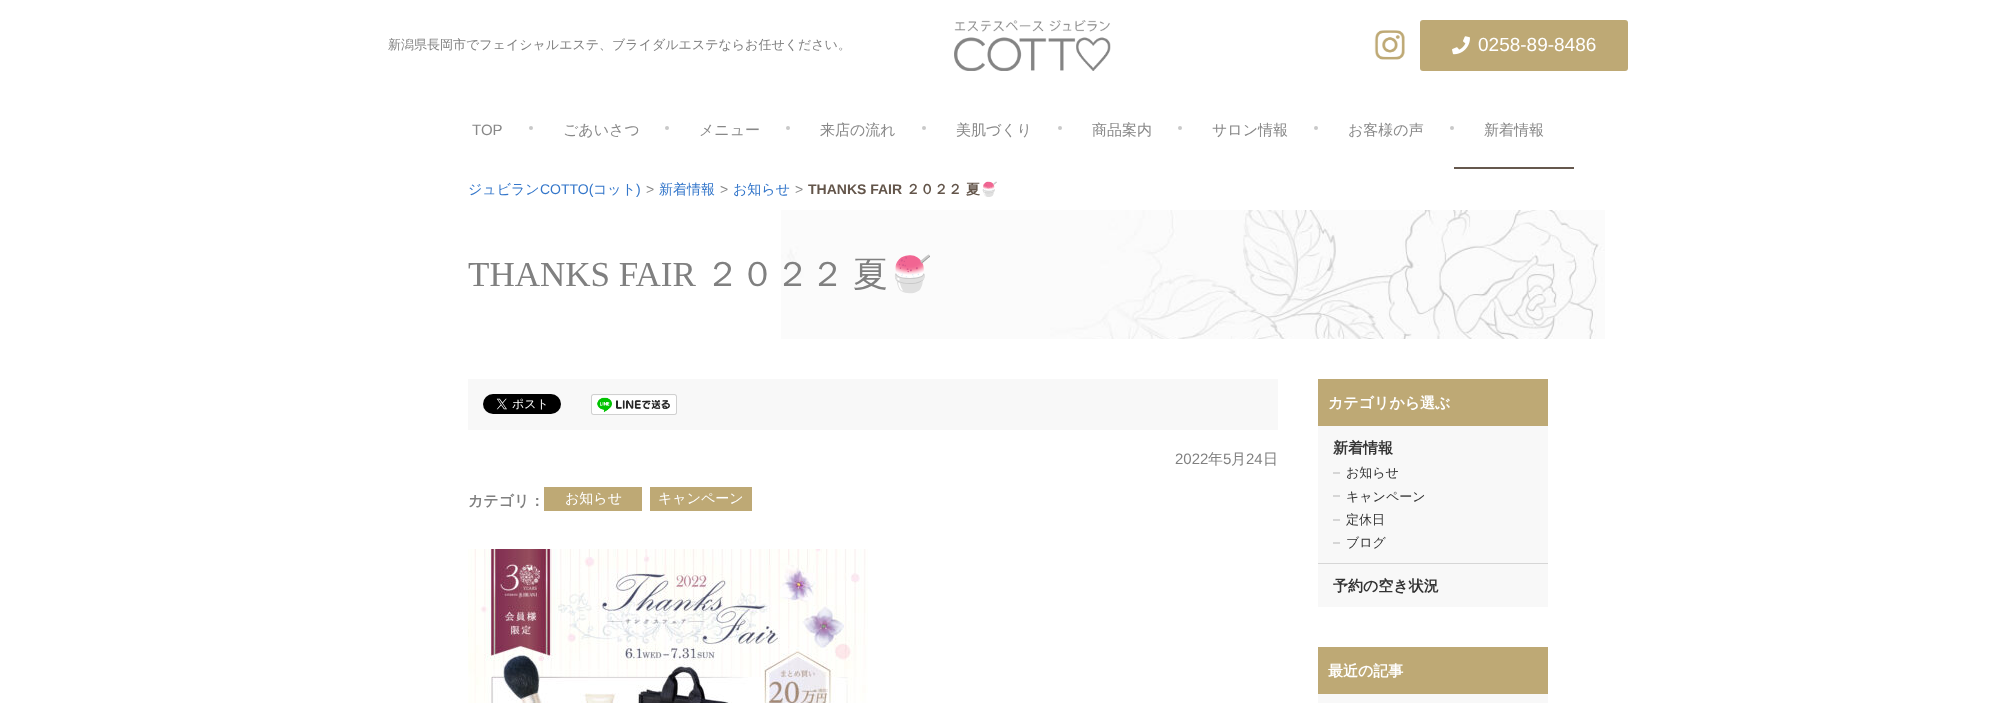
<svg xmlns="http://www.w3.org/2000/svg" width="2016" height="703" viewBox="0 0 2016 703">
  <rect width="100%" height="100%" fill="#ffffff"/>
  <text x="388" y="49" font-family="WenQuanYi Zen Hei" font-size="13" font-weight="500" fill="#808080">新潟県長岡市でフェイシャルエステ、ブライダルエステならお任せください。</text>
  <image x="954" y="20" width="157" height="51" href="img1.png"/>
  <image x="1374" y="30" width="31" height="30" href="img2.png"/>
  <rect x="1420" y="20" width="208" height="51" rx="3" fill="#bea975"/>
  <image x="1452" y="36" width="18" height="19" href="img3.png"/>
  <text x="1478" y="51" font-family="Liberation Sans" font-size="19" fill="#ffffff">0258-89-8486</text>
  <text x="472" y="135" font-family="Liberation Sans" font-size="15" fill="#888888">TOP</text>
  <circle cx="531" cy="128" r="2" fill="#c9c9c9"/>
  <text x="563" y="135" font-family="WenQuanYi Zen Hei" font-size="15" font-weight="500" fill="#888888">ごあいさつ</text>
  <circle cx="667" cy="128" r="2" fill="#c9c9c9"/>
  <text x="699" y="135" font-family="WenQuanYi Zen Hei" font-size="15" font-weight="500" fill="#888888">メニュー</text>
  <circle cx="788" cy="128" r="2" fill="#c9c9c9"/>
  <text x="820" y="135" font-family="WenQuanYi Zen Hei" font-size="15" font-weight="500" fill="#888888">来店の流れ</text>
  <circle cx="924" cy="128" r="2" fill="#c9c9c9"/>
  <text x="956" y="135" font-family="WenQuanYi Zen Hei" font-size="15" font-weight="500" fill="#888888">美肌づくり</text>
  <circle cx="1060" cy="128" r="2" fill="#c9c9c9"/>
  <text x="1092" y="135" font-family="WenQuanYi Zen Hei" font-size="15" font-weight="500" fill="#888888">商品案内</text>
  <circle cx="1180" cy="128" r="2" fill="#c9c9c9"/>
  <text x="1212" y="135" font-family="WenQuanYi Zen Hei" font-size="15" font-weight="500" fill="#888888">サロン情報</text>
  <circle cx="1316" cy="128" r="2" fill="#c9c9c9"/>
  <text x="1348" y="135" font-family="WenQuanYi Zen Hei" font-size="15" font-weight="500" fill="#888888">お客様の声</text>
  <circle cx="1452" cy="128" r="2" fill="#c9c9c9"/>
  <text x="1484" y="135" font-family="WenQuanYi Zen Hei" font-size="15" font-weight="500" fill="#888888">新着情報</text>
  <rect x="1454" y="167" width="120" height="2" fill="#65584e"/>
  <text x="468" y="194" font-family="WenQuanYi Zen Hei" font-size="14" font-weight="500" fill="#3376ca">ジュビラン</text>
  <text x="540" y="194" font-family="Liberation Sans" font-size="14" fill="#3376ca">COTTO(</text>
  <text x="593" y="194" font-family="WenQuanYi Zen Hei" font-size="14" font-weight="500" fill="#3376ca">コット</text>
  <text x="636" y="194" font-family="Liberation Sans" font-size="14" fill="#3376ca">)</text>
  <text x="646" y="194" font-family="Liberation Sans" font-size="14" fill="#888888">&gt;</text>
  <text x="659" y="194" font-family="WenQuanYi Zen Hei" font-size="14" font-weight="500" fill="#3376ca">新着情報</text>
  <text x="720" y="194" font-family="Liberation Sans" font-size="14" fill="#888888">&gt;</text>
  <text x="733" y="194" font-family="WenQuanYi Zen Hei" font-size="14" font-weight="500" fill="#3376ca">お知らせ</text>
  <text x="795" y="194" font-family="Liberation Sans" font-size="14" fill="#888888">&gt;</text>
  <text x="808" y="194" font-family="Liberation Sans" font-size="14" font-weight="bold" fill="#63554a">THANKS FAIR</text>
  <text x="906" y="194" font-family="WenQuanYi Zen Hei" font-size="14" font-weight="bold" fill="#63554a">２０２２</text>
  <text x="966" y="194" font-family="WenQuanYi Zen Hei" font-size="14" font-weight="bold" fill="#63554a">夏</text>
  <text x="980" y="194" font-family="Noto Color Emoji" font-size="14" font-weight="bold" fill="#63554a">🍧</text>
  <image x="781" y="210" width="824" height="129" href="img4.png"/>
  <text x="468" y="286" font-family="Liberation Serif" font-size="35" fill="#808080">THANKS FAIR</text>
  <text x="705" y="286" font-family="WenQuanYi Zen Hei" font-size="35" font-weight="500" fill="#808080">２０２２</text>
  <text x="853" y="286" font-family="WenQuanYi Zen Hei" font-size="35" font-weight="500" fill="#808080">夏</text>
  <text x="888" y="286" font-family="Noto Color Emoji" font-size="35" fill="#808080">🍧</text>
  <rect x="468" y="379" width="810" height="51" fill="#f8f8f8"/>
  <image x="483" y="394" width="78" height="20" href="img5.png"/>
  <image x="591" y="394" width="86" height="21" href="img6.png"/>
  <text x="1175" y="464" font-family="Liberation Sans" font-size="15" fill="#808080">2022</text>
  <text x="1208" y="464" font-family="WenQuanYi Zen Hei" font-size="15" font-weight="500" fill="#808080">年</text>
  <text x="1223" y="464" font-family="Liberation Sans" font-size="15" fill="#808080">5</text>
  <text x="1231" y="464" font-family="WenQuanYi Zen Hei" font-size="15" font-weight="500" fill="#808080">月</text>
  <text x="1246" y="464" font-family="Liberation Sans" font-size="15" fill="#808080">24</text>
  <text x="1263" y="464" font-family="WenQuanYi Zen Hei" font-size="15" font-weight="500" fill="#808080">日</text>
  <text x="468" y="506" font-family="WenQuanYi Zen Hei" font-size="15" font-weight="bold" fill="#808080">カテゴリ：</text>
  <rect x="544" y="487" width="98" height="24" fill="#bea975"/>
  <text x="565" y="503" font-family="WenQuanYi Zen Hei" font-size="14" font-weight="500" fill="#ffffff">お知らせ</text>
  <rect x="650" y="487" width="102" height="24" fill="#bea975"/>
  <text x="658" y="503" font-family="WenQuanYi Zen Hei" font-size="14" font-weight="500" fill="#ffffff">キャンペーン</text>
  <image x="468" y="549" width="400" height="154" href="img7.png"/>
  <rect x="1318" y="379" width="230" height="47" fill="#bea975"/>
  <text x="1328" y="408" font-family="WenQuanYi Zen Hei" font-size="15" font-weight="bold" fill="#ffffff">カテゴリから選ぶ</text>
  <rect x="1318" y="426" width="230" height="137" fill="#f8f8f8"/>
  <rect x="1318" y="563" width="230" height="1" fill="#d6d6d6"/>
  <text x="1333" y="453" font-family="WenQuanYi Zen Hei" font-size="15" font-weight="bold" fill="#333333">新着情報</text>
  <rect x="1333" y="472" width="7" height="2" fill="#d6d6d6"/>
  <text x="1346" y="477" font-family="WenQuanYi Zen Hei" font-size="13" font-weight="500" fill="#333333">お知らせ</text>
  <rect x="1333" y="495" width="7" height="2" fill="#d6d6d6"/>
  <text x="1346" y="501" font-family="WenQuanYi Zen Hei" font-size="13" font-weight="500" fill="#333333">キャンペーン</text>
  <rect x="1333" y="519" width="7" height="2" fill="#d6d6d6"/>
  <text x="1346" y="524" font-family="WenQuanYi Zen Hei" font-size="13" font-weight="500" fill="#333333">定休日</text>
  <rect x="1333" y="542" width="7" height="2" fill="#d6d6d6"/>
  <text x="1346" y="547" font-family="WenQuanYi Zen Hei" font-size="13" font-weight="500" fill="#333333">ブログ</text>
  <rect x="1318" y="564" width="230" height="43" fill="#f8f8f8"/>
  <text x="1333" y="591" font-family="WenQuanYi Zen Hei" font-size="15" font-weight="bold" fill="#333333">予約の空き状況</text>
  <rect x="1318" y="647" width="230" height="47" fill="#bea975"/>
  <text x="1328" y="676" font-family="WenQuanYi Zen Hei" font-size="15" font-weight="bold" fill="#ffffff">最近の記事</text>
  <rect x="1318" y="694" width="230" height="9" fill="#f8f8f8"/>
</svg>
